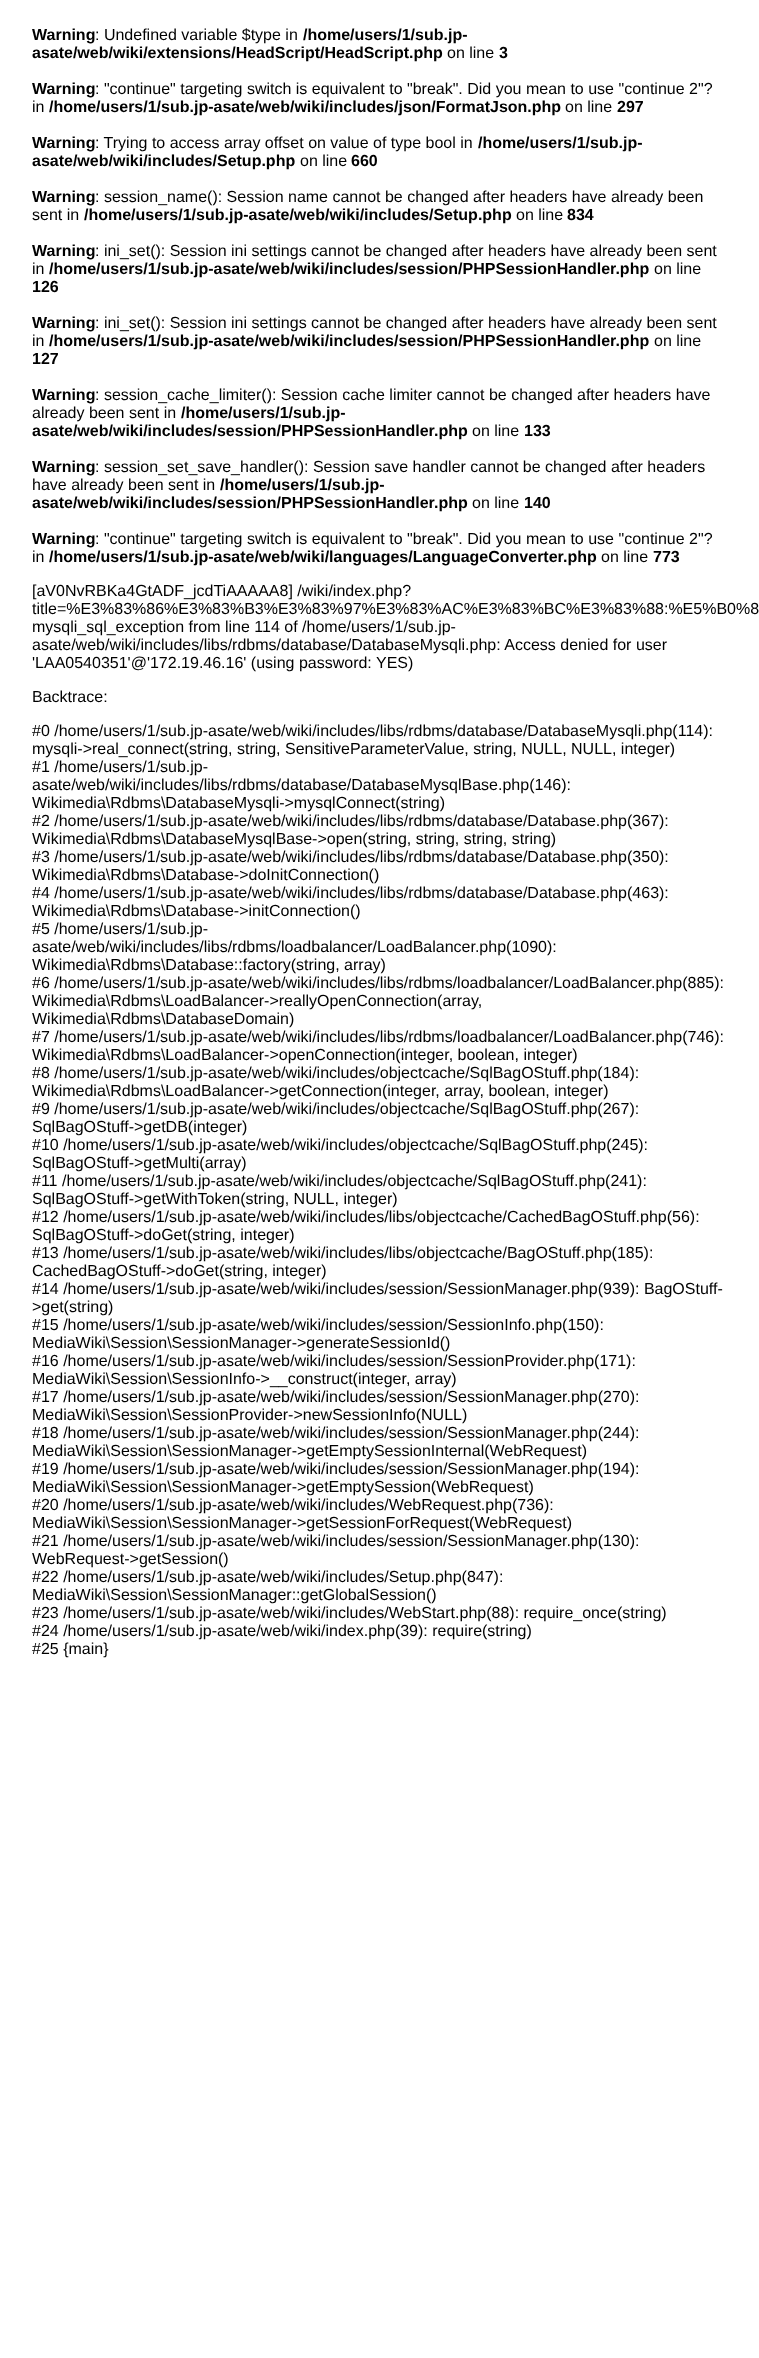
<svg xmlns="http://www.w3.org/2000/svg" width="759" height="2358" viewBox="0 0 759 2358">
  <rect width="100%" height="100%" fill="#ffffff"/>
  <text x="32" y="40" font-family="Liberation Sans" font-size="16" font-weight="bold" fill="#000000">Warning</text>
  <text x="95" y="40" font-family="Liberation Sans" font-size="16" fill="#000000">: Undefined variable $type in</text>
  <text x="303" y="40" font-family="Liberation Sans" font-size="16" font-weight="bold" fill="#000000">/home/users/1/sub.jp-</text>
  <text x="32" y="58" font-family="Liberation Sans" font-size="16" font-weight="bold" fill="#000000">asate/web/wiki/extensions/HeadScript/HeadScript.php</text>
  <text x="447" y="58" font-family="Liberation Sans" font-size="16" fill="#000000">on line</text>
  <text x="499" y="58" font-family="Liberation Sans" font-size="16" font-weight="bold" fill="#000000">3</text>
  <text x="32" y="94" font-family="Liberation Sans" font-size="16" font-weight="bold" fill="#000000">Warning</text>
  <text x="95" y="94" font-family="Liberation Sans" font-size="16" fill="#000000">: "continue" targeting switch is equivalent to "break". Did you mean to use "continue 2"?</text>
  <text x="32" y="112" font-family="Liberation Sans" font-size="16" fill="#000000">in</text>
  <text x="49" y="112" font-family="Liberation Sans" font-size="16" font-weight="bold" fill="#000000">/home/users/1/sub.jp-asate/web/wiki/includes/json/FormatJson.php</text>
  <text x="565" y="112" font-family="Liberation Sans" font-size="16" fill="#000000">on line</text>
  <text x="617" y="112" font-family="Liberation Sans" font-size="16" font-weight="bold" fill="#000000">297</text>
  <text x="32" y="148" font-family="Liberation Sans" font-size="16" font-weight="bold" fill="#000000">Warning</text>
  <text x="95" y="148" font-family="Liberation Sans" font-size="16" fill="#000000">: Trying to access array offset on value of type bool in</text>
  <text x="478" y="148" font-family="Liberation Sans" font-size="16" font-weight="bold" fill="#000000">/home/users/1/sub.jp-</text>
  <text x="32" y="166" font-family="Liberation Sans" font-size="16" font-weight="bold" fill="#000000">asate/web/wiki/includes/Setup.php</text>
  <text x="300" y="166" font-family="Liberation Sans" font-size="16" fill="#000000">on line</text>
  <text x="351" y="166" font-family="Liberation Sans" font-size="16" font-weight="bold" fill="#000000">660</text>
  <text x="32" y="202" font-family="Liberation Sans" font-size="16" font-weight="bold" fill="#000000">Warning</text>
  <text x="95" y="202" font-family="Liberation Sans" font-size="16" fill="#000000">: session_name(): Session name cannot be changed after headers have already been</text>
  <text x="32" y="220" font-family="Liberation Sans" font-size="16" fill="#000000">sent in</text>
  <text x="84" y="220" font-family="Liberation Sans" font-size="16" font-weight="bold" fill="#000000">/home/users/1/sub.jp-asate/web/wiki/includes/Setup.php</text>
  <text x="516" y="220" font-family="Liberation Sans" font-size="16" fill="#000000">on line</text>
  <text x="567" y="220" font-family="Liberation Sans" font-size="16" font-weight="bold" fill="#000000">834</text>
  <text x="32" y="256" font-family="Liberation Sans" font-size="16" font-weight="bold" fill="#000000">Warning</text>
  <text x="95" y="256" font-family="Liberation Sans" font-size="16" fill="#000000">: ini_set(): Session ini settings cannot be changed after headers have already been sent</text>
  <text x="32" y="274" font-family="Liberation Sans" font-size="16" fill="#000000">in</text>
  <text x="49" y="274" font-family="Liberation Sans" font-size="16" font-weight="bold" fill="#000000">/home/users/1/sub.jp-asate/web/wiki/includes/session/PHPSessionHandler.php</text>
  <text x="654" y="274" font-family="Liberation Sans" font-size="16" fill="#000000">on line</text>
  <text x="32" y="292" font-family="Liberation Sans" font-size="16" font-weight="bold" fill="#000000">126</text>
  <text x="32" y="328" font-family="Liberation Sans" font-size="16" font-weight="bold" fill="#000000">Warning</text>
  <text x="95" y="328" font-family="Liberation Sans" font-size="16" fill="#000000">: ini_set(): Session ini settings cannot be changed after headers have already been sent</text>
  <text x="32" y="346" font-family="Liberation Sans" font-size="16" fill="#000000">in</text>
  <text x="49" y="346" font-family="Liberation Sans" font-size="16" font-weight="bold" fill="#000000">/home/users/1/sub.jp-asate/web/wiki/includes/session/PHPSessionHandler.php</text>
  <text x="654" y="346" font-family="Liberation Sans" font-size="16" fill="#000000">on line</text>
  <text x="32" y="364" font-family="Liberation Sans" font-size="16" font-weight="bold" fill="#000000">127</text>
  <text x="32" y="400" font-family="Liberation Sans" font-size="16" font-weight="bold" fill="#000000">Warning</text>
  <text x="95" y="400" font-family="Liberation Sans" font-size="16" fill="#000000">: session_cache_limiter(): Session cache limiter cannot be changed after headers have</text>
  <text x="32" y="418" font-family="Liberation Sans" font-size="16" fill="#000000">already been sent in</text>
  <text x="181" y="418" font-family="Liberation Sans" font-size="16" font-weight="bold" fill="#000000">/home/users/1/sub.jp-</text>
  <text x="32" y="436" font-family="Liberation Sans" font-size="16" font-weight="bold" fill="#000000">asate/web/wiki/includes/session/PHPSessionHandler.php</text>
  <text x="472" y="436" font-family="Liberation Sans" font-size="16" fill="#000000">on line</text>
  <text x="524" y="436" font-family="Liberation Sans" font-size="16" font-weight="bold" fill="#000000">133</text>
  <text x="32" y="472" font-family="Liberation Sans" font-size="16" font-weight="bold" fill="#000000">Warning</text>
  <text x="95" y="472" font-family="Liberation Sans" font-size="16" fill="#000000">: session_set_save_handler(): Session save handler cannot be changed after headers</text>
  <text x="32" y="490" font-family="Liberation Sans" font-size="16" fill="#000000">have already been sent in</text>
  <text x="220" y="490" font-family="Liberation Sans" font-size="16" font-weight="bold" fill="#000000">/home/users/1/sub.jp-</text>
  <text x="32" y="508" font-family="Liberation Sans" font-size="16" font-weight="bold" fill="#000000">asate/web/wiki/includes/session/PHPSessionHandler.php</text>
  <text x="472" y="508" font-family="Liberation Sans" font-size="16" fill="#000000">on line</text>
  <text x="524" y="508" font-family="Liberation Sans" font-size="16" font-weight="bold" fill="#000000">140</text>
  <text x="32" y="544" font-family="Liberation Sans" font-size="16" font-weight="bold" fill="#000000">Warning</text>
  <text x="95" y="544" font-family="Liberation Sans" font-size="16" fill="#000000">: "continue" targeting switch is equivalent to "break". Did you mean to use "continue 2"?</text>
  <text x="32" y="562" font-family="Liberation Sans" font-size="16" fill="#000000">in</text>
  <text x="49" y="562" font-family="Liberation Sans" font-size="16" font-weight="bold" fill="#000000">/home/users/1/sub.jp-asate/web/wiki/languages/LanguageConverter.php</text>
  <text x="601" y="562" font-family="Liberation Sans" font-size="16" fill="#000000">on line</text>
  <text x="653" y="562" font-family="Liberation Sans" font-size="16" font-weight="bold" fill="#000000">773</text>
  <text x="32" y="596" font-family="Liberation Sans" font-size="16" fill="#000000">[aV0NvRBKa4GtADF_jcdTiAAAAA8] /wiki/index.php?</text>
  <text x="32" y="614" font-family="Liberation Sans" font-size="16" fill="#000000">title=%E3%83%86%E3%83%B3%E3%83%97%E3%83%AC%E3%83%BC%E3%83%88:%E5%B0%8</text>
  <text x="32" y="632" font-family="Liberation Sans" font-size="16" fill="#000000">mysqli_sql_exception from line 114 of /home/users/1/sub.jp-</text>
  <text x="32" y="650" font-family="Liberation Sans" font-size="16" fill="#000000">asate/web/wiki/includes/libs/rdbms/database/DatabaseMysqli.php: Access denied for user</text>
  <text x="32" y="668" font-family="Liberation Sans" font-size="16" fill="#000000">'LAA0540351'@'172.19.46.16' (using password: YES)</text>
  <text x="32" y="702" font-family="Liberation Sans" font-size="16" fill="#000000">Backtrace:</text>
  <text x="32" y="736" font-family="Liberation Sans" font-size="16" fill="#000000">#0 /home/users/1/sub.jp-asate/web/wiki/includes/libs/rdbms/database/DatabaseMysqli.php(114):</text>
  <text x="32" y="754" font-family="Liberation Sans" font-size="16" fill="#000000">mysqli-&gt;real_connect(string, string, SensitiveParameterValue, string, NULL, NULL, integer)</text>
  <text x="32" y="772" font-family="Liberation Sans" font-size="16" fill="#000000">#1 /home/users/1/sub.jp-</text>
  <text x="32" y="790" font-family="Liberation Sans" font-size="16" fill="#000000">asate/web/wiki/includes/libs/rdbms/database/DatabaseMysqlBase.php(146):</text>
  <text x="32" y="808" font-family="Liberation Sans" font-size="16" fill="#000000">Wikimedia\Rdbms\DatabaseMysqli-&gt;mysqlConnect(string)</text>
  <text x="32" y="826" font-family="Liberation Sans" font-size="16" fill="#000000">#2 /home/users/1/sub.jp-asate/web/wiki/includes/libs/rdbms/database/Database.php(367):</text>
  <text x="32" y="844" font-family="Liberation Sans" font-size="16" fill="#000000">Wikimedia\Rdbms\DatabaseMysqlBase-&gt;open(string, string, string, string)</text>
  <text x="32" y="862" font-family="Liberation Sans" font-size="16" fill="#000000">#3 /home/users/1/sub.jp-asate/web/wiki/includes/libs/rdbms/database/Database.php(350):</text>
  <text x="32" y="880" font-family="Liberation Sans" font-size="16" fill="#000000">Wikimedia\Rdbms\Database-&gt;doInitConnection()</text>
  <text x="32" y="898" font-family="Liberation Sans" font-size="16" fill="#000000">#4 /home/users/1/sub.jp-asate/web/wiki/includes/libs/rdbms/database/Database.php(463):</text>
  <text x="32" y="916" font-family="Liberation Sans" font-size="16" fill="#000000">Wikimedia\Rdbms\Database-&gt;initConnection()</text>
  <text x="32" y="934" font-family="Liberation Sans" font-size="16" fill="#000000">#5 /home/users/1/sub.jp-</text>
  <text x="32" y="952" font-family="Liberation Sans" font-size="16" fill="#000000">asate/web/wiki/includes/libs/rdbms/loadbalancer/LoadBalancer.php(1090):</text>
  <text x="32" y="970" font-family="Liberation Sans" font-size="16" fill="#000000">Wikimedia\Rdbms\Database::factory(string, array)</text>
  <text x="32" y="988" font-family="Liberation Sans" font-size="16" fill="#000000">#6 /home/users/1/sub.jp-asate/web/wiki/includes/libs/rdbms/loadbalancer/LoadBalancer.php(885):</text>
  <text x="32" y="1006" font-family="Liberation Sans" font-size="16" fill="#000000">Wikimedia\Rdbms\LoadBalancer-&gt;reallyOpenConnection(array,</text>
  <text x="32" y="1024" font-family="Liberation Sans" font-size="16" fill="#000000">Wikimedia\Rdbms\DatabaseDomain)</text>
  <text x="32" y="1042" font-family="Liberation Sans" font-size="16" fill="#000000">#7 /home/users/1/sub.jp-asate/web/wiki/includes/libs/rdbms/loadbalancer/LoadBalancer.php(746):</text>
  <text x="32" y="1060" font-family="Liberation Sans" font-size="16" fill="#000000">Wikimedia\Rdbms\LoadBalancer-&gt;openConnection(integer, boolean, integer)</text>
  <text x="32" y="1078" font-family="Liberation Sans" font-size="16" fill="#000000">#8 /home/users/1/sub.jp-asate/web/wiki/includes/objectcache/SqlBagOStuff.php(184):</text>
  <text x="32" y="1096" font-family="Liberation Sans" font-size="16" fill="#000000">Wikimedia\Rdbms\LoadBalancer-&gt;getConnection(integer, array, boolean, integer)</text>
  <text x="32" y="1114" font-family="Liberation Sans" font-size="16" fill="#000000">#9 /home/users/1/sub.jp-asate/web/wiki/includes/objectcache/SqlBagOStuff.php(267):</text>
  <text x="32" y="1132" font-family="Liberation Sans" font-size="16" fill="#000000">SqlBagOStuff-&gt;getDB(integer)</text>
  <text x="32" y="1150" font-family="Liberation Sans" font-size="16" fill="#000000">#10 /home/users/1/sub.jp-asate/web/wiki/includes/objectcache/SqlBagOStuff.php(245):</text>
  <text x="32" y="1168" font-family="Liberation Sans" font-size="16" fill="#000000">SqlBagOStuff-&gt;getMulti(array)</text>
  <text x="32" y="1186" font-family="Liberation Sans" font-size="16" fill="#000000">#11 /home/users/1/sub.jp-asate/web/wiki/includes/objectcache/SqlBagOStuff.php(241):</text>
  <text x="32" y="1204" font-family="Liberation Sans" font-size="16" fill="#000000">SqlBagOStuff-&gt;getWithToken(string, NULL, integer)</text>
  <text x="32" y="1222" font-family="Liberation Sans" font-size="16" fill="#000000">#12 /home/users/1/sub.jp-asate/web/wiki/includes/libs/objectcache/CachedBagOStuff.php(56):</text>
  <text x="32" y="1240" font-family="Liberation Sans" font-size="16" fill="#000000">SqlBagOStuff-&gt;doGet(string, integer)</text>
  <text x="32" y="1258" font-family="Liberation Sans" font-size="16" fill="#000000">#13 /home/users/1/sub.jp-asate/web/wiki/includes/libs/objectcache/BagOStuff.php(185):</text>
  <text x="32" y="1276" font-family="Liberation Sans" font-size="16" fill="#000000">CachedBagOStuff-&gt;doGet(string, integer)</text>
  <text x="32" y="1294" font-family="Liberation Sans" font-size="16" fill="#000000">#14 /home/users/1/sub.jp-asate/web/wiki/includes/session/SessionManager.php(939): BagOStuff-</text>
  <text x="32" y="1312" font-family="Liberation Sans" font-size="16" fill="#000000">&gt;get(string)</text>
  <text x="32" y="1330" font-family="Liberation Sans" font-size="16" fill="#000000">#15 /home/users/1/sub.jp-asate/web/wiki/includes/session/SessionInfo.php(150):</text>
  <text x="32" y="1348" font-family="Liberation Sans" font-size="16" fill="#000000">MediaWiki\Session\SessionManager-&gt;generateSessionId()</text>
  <text x="32" y="1366" font-family="Liberation Sans" font-size="16" fill="#000000">#16 /home/users/1/sub.jp-asate/web/wiki/includes/session/SessionProvider.php(171):</text>
  <text x="32" y="1384" font-family="Liberation Sans" font-size="16" fill="#000000">MediaWiki\Session\SessionInfo-&gt;__construct(integer, array)</text>
  <text x="32" y="1402" font-family="Liberation Sans" font-size="16" fill="#000000">#17 /home/users/1/sub.jp-asate/web/wiki/includes/session/SessionManager.php(270):</text>
  <text x="32" y="1420" font-family="Liberation Sans" font-size="16" fill="#000000">MediaWiki\Session\SessionProvider-&gt;newSessionInfo(NULL)</text>
  <text x="32" y="1438" font-family="Liberation Sans" font-size="16" fill="#000000">#18 /home/users/1/sub.jp-asate/web/wiki/includes/session/SessionManager.php(244):</text>
  <text x="32" y="1456" font-family="Liberation Sans" font-size="16" fill="#000000">MediaWiki\Session\SessionManager-&gt;getEmptySessionInternal(WebRequest)</text>
  <text x="32" y="1474" font-family="Liberation Sans" font-size="16" fill="#000000">#19 /home/users/1/sub.jp-asate/web/wiki/includes/session/SessionManager.php(194):</text>
  <text x="32" y="1492" font-family="Liberation Sans" font-size="16" fill="#000000">MediaWiki\Session\SessionManager-&gt;getEmptySession(WebRequest)</text>
  <text x="32" y="1510" font-family="Liberation Sans" font-size="16" fill="#000000">#20 /home/users/1/sub.jp-asate/web/wiki/includes/WebRequest.php(736):</text>
  <text x="32" y="1528" font-family="Liberation Sans" font-size="16" fill="#000000">MediaWiki\Session\SessionManager-&gt;getSessionForRequest(WebRequest)</text>
  <text x="32" y="1546" font-family="Liberation Sans" font-size="16" fill="#000000">#21 /home/users/1/sub.jp-asate/web/wiki/includes/session/SessionManager.php(130):</text>
  <text x="32" y="1564" font-family="Liberation Sans" font-size="16" fill="#000000">WebRequest-&gt;getSession()</text>
  <text x="32" y="1582" font-family="Liberation Sans" font-size="16" fill="#000000">#22 /home/users/1/sub.jp-asate/web/wiki/includes/Setup.php(847):</text>
  <text x="32" y="1600" font-family="Liberation Sans" font-size="16" fill="#000000">MediaWiki\Session\SessionManager::getGlobalSession()</text>
  <text x="32" y="1618" font-family="Liberation Sans" font-size="16" fill="#000000">#23 /home/users/1/sub.jp-asate/web/wiki/includes/WebStart.php(88): require_once(string)</text>
  <text x="32" y="1636" font-family="Liberation Sans" font-size="16" fill="#000000">#24 /home/users/1/sub.jp-asate/web/wiki/index.php(39): require(string)</text>
  <text x="32" y="1654" font-family="Liberation Sans" font-size="16" fill="#000000">#25 {main}</text>
</svg>
